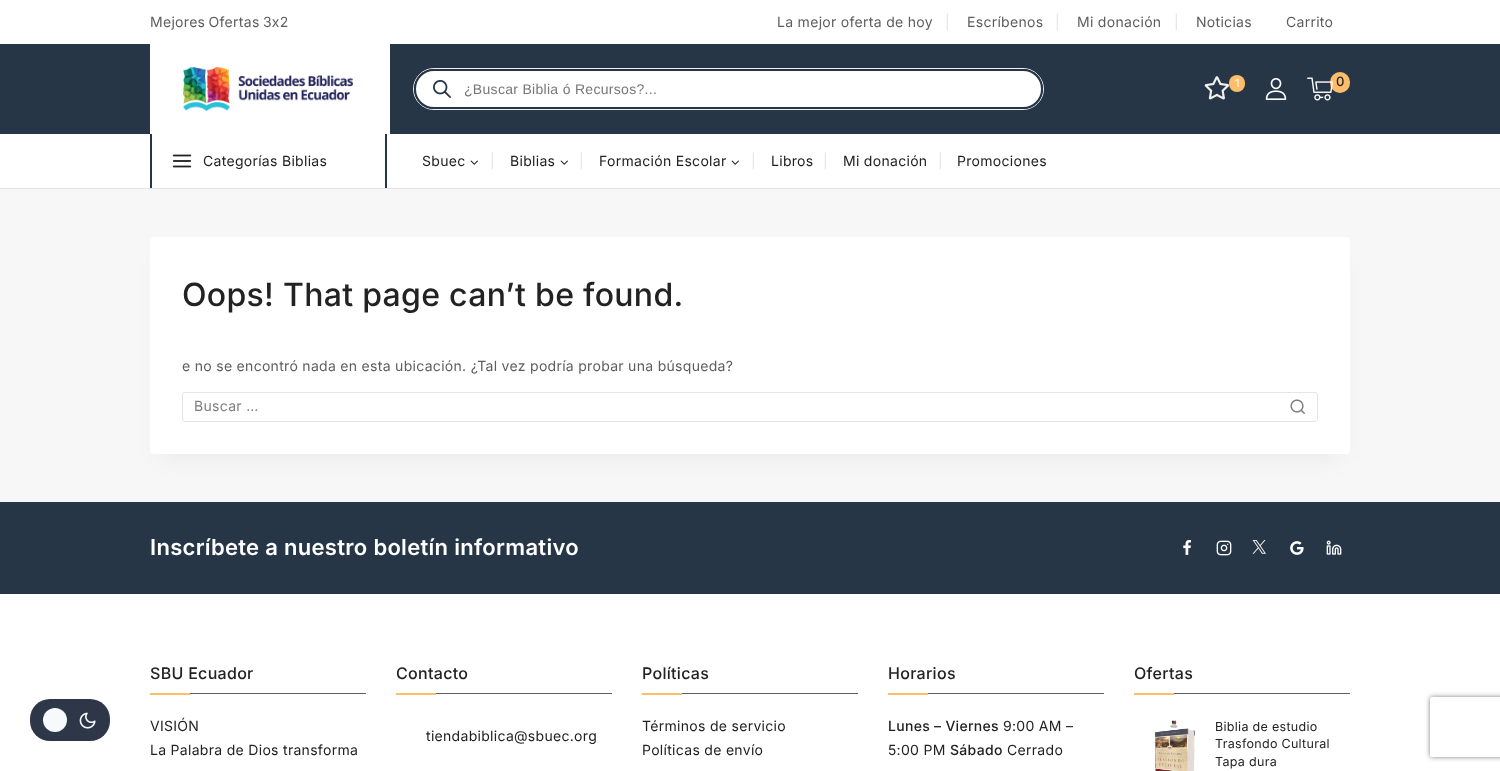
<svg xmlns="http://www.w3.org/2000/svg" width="1500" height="771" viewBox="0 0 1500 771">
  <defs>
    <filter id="blur1" x="-50%" y="-200%" width="200%" height="500%"><feGaussianBlur stdDeviation="12.5"/></filter>
    <clipPath id="clip1"><path d="M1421 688H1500V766H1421ZM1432 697H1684C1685 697 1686 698 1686 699V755C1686 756 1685 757 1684 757H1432C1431 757 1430 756 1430 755V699C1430 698 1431 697 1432 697Z" clip-rule="evenodd"/></clipPath>
    <filter id="blur2" x="-50%" y="-200%" width="200%" height="500%"><feGaussianBlur stdDeviation="2.5"/></filter>
  </defs>
  <rect width="100%" height="100%" fill="#f7f7f7"/>
  <rect x="0" y="594" width="1500" height="177" fill="#ffffff"/>
  <rect x="30" y="699" width="80" height="42" rx="20" fill="#2d3748"/>
  <circle cx="55" cy="720" r="12" fill="#f7fafc"/>
  <image x="79" y="712" width="17" height="17" href="img1.png"/>
  <rect x="0" y="0" width="1500" height="188" fill="#ffffff"/>
  <text x="150" y="27" word-spacing="-1" font-family="Inter" font-size="14" letter-spacing="0.3" fill="#5e5e5e">Mejores Ofertas 3x2</text>
  <text x="777" y="27" font-family="Inter" font-size="14" letter-spacing="0.3" fill="#5e5e5e">La mejor oferta de hoy</text>
  <text x="945" y="27" font-family="Inter" font-size="14" letter-spacing="0.3" fill="#e5e5e5">|</text>
  <text x="967" y="27" font-family="Inter" font-size="14" letter-spacing="0.3" fill="#5e5e5e">Escríbenos</text>
  <text x="1055" y="27" font-family="Inter" font-size="14" letter-spacing="0.3" fill="#e5e5e5">|</text>
  <text x="1077" y="27" font-family="Inter" font-size="14" letter-spacing="0.3" fill="#5e5e5e">Mi donación</text>
  <text x="1174" y="27" font-family="Inter" font-size="14" letter-spacing="0.3" fill="#e5e5e5">|</text>
  <text x="1196" y="27" font-family="Inter" font-size="14" letter-spacing="0.3" fill="#5e5e5e">Noticias</text>
  <text x="1286" y="27" font-family="Inter" font-size="14" letter-spacing="0.3" fill="#5e5e5e">Carrito</text>
  <rect x="0" y="44" width="1500" height="90" fill="#273647"/>
  <rect x="150" y="44" width="240" height="90" fill="#ffffff"/>
  <image x="183" y="67" width="170" height="44" href="img2.png"/>
  <rect x="1229" y="75" width="16" height="17" rx="8" fill="#febd69"/>
  <image x="1204" y="76" width="26" height="24" href="img3.png"/>
  <text x="1235" y="87" font-family="Inter" font-size="11" letter-spacing="0.3" fill="#ffffff">1</text>
  <image x="1265" y="78" width="22" height="22" href="img4.png"/>
  <rect x="1330" y="72" width="20" height="21" rx="10" fill="#febd69"/>
  <image x="1307" y="77" width="26" height="24" href="img5.png"/>
  <text x="1336" y="86" font-family="Inter" font-size="13" font-weight="500" fill="#222222">0</text>
  <rect x="413.5" y="68.5" width="630" height="41" rx="20.5" fill="none" stroke="#eeeeee"/>
  <rect x="415" y="70" width="627" height="38" rx="19" fill="#ffffff" stroke="#273647" stroke-width="2"/>
  <image x="433" y="80" width="18" height="18" href="img6.png"/>
  <text x="464" y="94" font-family="Liberation Sans" font-size="14" letter-spacing="0.3" fill="#777777">¿Buscar Biblia ó Recursos?...</text>
  <rect x="0" y="188" width="1500" height="1" fill="#e5e5e5"/>
  <rect x="385" y="134" width="2" height="54" fill="#273647"/>
  <rect x="150" y="134" width="2" height="54" fill="#273647"/>
  <image x="172" y="154" width="20" height="14" href="img7.png"/>
  <text x="203" y="166" font-family="Inter" font-size="14" letter-spacing="0.3" fill="#222222">Categorías Biblias</text>
  <text x="422" y="166" font-family="Inter" font-size="14" letter-spacing="0.3" fill="#222222">Sbuec</text>
  <image x="470" y="160" width="8" height="5" href="img8.png"/>
  <text x="490" y="166" font-family="Inter" font-size="14" letter-spacing="0.3" fill="#e5e5e5">|</text>
  <text x="510" y="166" font-family="Inter" font-size="14" letter-spacing="0.3" fill="#222222">Biblias</text>
  <image x="560" y="160" width="8" height="5" href="img8.png"/>
  <text x="579" y="166" font-family="Inter" font-size="14" letter-spacing="0.3" fill="#e5e5e5">|</text>
  <text x="599" y="166" font-family="Inter" font-size="14" letter-spacing="0.3" fill="#222222">Formación Escolar</text>
  <image x="731" y="160" width="8" height="5" href="img8.png"/>
  <text x="751" y="166" font-family="Inter" font-size="14" letter-spacing="0.3" fill="#e5e5e5">|</text>
  <text x="771" y="166" font-family="Inter" font-size="14" letter-spacing="0.3" fill="#222222">Libros</text>
  <text x="823" y="166" font-family="Inter" font-size="14" letter-spacing="0.3" fill="#e5e5e5">|</text>
  <text x="843" y="166" font-family="Inter" font-size="14" letter-spacing="0.3" fill="#222222">Mi donación</text>
  <text x="938" y="166" font-family="Inter" font-size="14" letter-spacing="0.3" fill="#e5e5e5">|</text>
  <text x="957" y="166" font-family="Inter" font-size="14" letter-spacing="0.3" fill="#222222">Promociones</text>
  <rect x="160" y="262" width="1180" height="197" fill="#000000" fill-opacity="0.05" filter="url(#blur1)"/>
  <rect x="150" y="237" width="1200" height="217" rx="4" fill="#ffffff"/>
  <text x="182" y="306" font-family="Inter" font-size="32" font-weight="500" letter-spacing="0.3" fill="#222222">Oops! That page can’t be found.</text>
  <text x="182" y="371" font-family="Inter" font-size="14" letter-spacing="0.3" fill="#5e5e5e">e no se encontró nada en esta ubicación. ¿Tal vez podría probar una búsqueda?</text>
  <rect x="182.5" y="392.5" width="1135" height="29" rx="2.5" fill="none" stroke="#e5e5e5"/>
  <text x="194" y="411" font-family="Inter" font-size="14" letter-spacing="0.3" fill="#7e7e7e">Buscar …</text>
  <image x="1290" y="399" width="15" height="15" href="img9.png"/>
  <rect x="0" y="502" width="1500" height="92" fill="#273647"/>
  <text x="150" y="555" font-family="Inter" font-size="22" font-weight="600" letter-spacing="0.3" fill="#ffffff">Inscríbete a nuestro boletín informativo</text>
  <image x="1183" y="540" width="8" height="15" href="img10.png"/>
  <image x="1216" y="540" width="16" height="16" href="img11.png"/>
  <image x="1252" y="540" width="14" height="14" href="img12.png"/>
  <image x="1290" y="541" width="14" height="14" href="img13.png"/>
  <image x="1326" y="540" width="16" height="15" href="img14.png"/>
  <rect x="190" y="693" width="176" height="1" fill="#5e5e5e"/>
  <text x="150" y="679" font-family="Inter" font-size="16" font-weight="500" letter-spacing="0.3" fill="#222222">SBU Ecuador</text>
  <rect x="150" y="693" width="40" height="2" fill="#febd69"/>
  <text x="150" y="731" font-family="Inter" font-size="14" letter-spacing="0.3" fill="#222222">VISIÓN</text>
  <text x="150" y="755" font-family="Inter" font-size="14" letter-spacing="0.3" fill="#222222">La Palabra de Dios transforma</text>
  <rect x="436" y="693" width="176" height="1" fill="#5e5e5e"/>
  <text x="396" y="679" font-family="Inter" font-size="16" font-weight="500" letter-spacing="0.3" fill="#222222">Contacto</text>
  <rect x="396" y="693" width="40" height="2" fill="#febd69"/>
  <text x="426" y="741" font-family="Inter" font-size="14" letter-spacing="0.3" fill="#222222">tiendabiblica@sbuec.org</text>
  <rect x="682" y="693" width="176" height="1" fill="#5e5e5e"/>
  <text x="642" y="679" font-family="Inter" font-size="16" font-weight="500" letter-spacing="0.3" fill="#222222">Políticas</text>
  <rect x="642" y="693" width="40" height="2" fill="#febd69"/>
  <text x="642" y="731" font-family="Inter" font-size="14" letter-spacing="0.3" fill="#222222">Términos de servicio</text>
  <text x="642" y="755" font-family="Inter" font-size="14" letter-spacing="0.3" fill="#222222">Políticas de envío</text>
  <rect x="928" y="693" width="176" height="1" fill="#5e5e5e"/>
  <text x="888" y="679" font-family="Inter" font-size="16" font-weight="500" letter-spacing="0.3" fill="#222222">Horarios</text>
  <rect x="888" y="693" width="40" height="2" fill="#febd69"/>
  <text x="888" y="731" font-family="Inter" font-size="14" font-weight="500" letter-spacing="0.3" fill="#222222">Lunes – Viernes</text>
  <text x="1003" y="731" font-family="Inter" font-size="14" letter-spacing="0.3" fill="#222222">9:00 AM –</text>
  <text x="888" y="755" font-family="Inter" font-size="14" letter-spacing="0.3" fill="#222222">5:00 PM</text>
  <text x="950" y="755" font-family="Inter" font-size="14" font-weight="500" letter-spacing="0.3" fill="#222222">Sábado</text>
  <text x="1007" y="755" font-family="Inter" font-size="14" letter-spacing="0.3" fill="#222222">Cerrado</text>
  <rect x="1174" y="693" width="176" height="1" fill="#5e5e5e"/>
  <text x="1134" y="679" font-family="Inter" font-size="16" font-weight="500" letter-spacing="0.3" fill="#222222">Ofertas</text>
  <rect x="1134" y="693" width="40" height="2" fill="#febd69"/>
  <image x="1154" y="720" width="41" height="51" href="img15.png"/>
  <text x="1215" y="731" font-family="Inter" font-size="12.5" letter-spacing="0.3" fill="#222222">Biblia de estudio</text>
  <text x="1215" y="748" font-family="Inter" font-size="12.5" letter-spacing="0.3" fill="#222222">Trasfondo Cultural</text>
  <text x="1215" y="766" font-family="Inter" font-size="12.5" letter-spacing="0.3" fill="#222222">Tapa dura</text>
  <g clip-path="url(#clip1)">
    <rect x="1430" y="697" width="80" height="60" rx="2" fill="#808080" filter="url(#blur2)"/>
  </g>
</svg>
